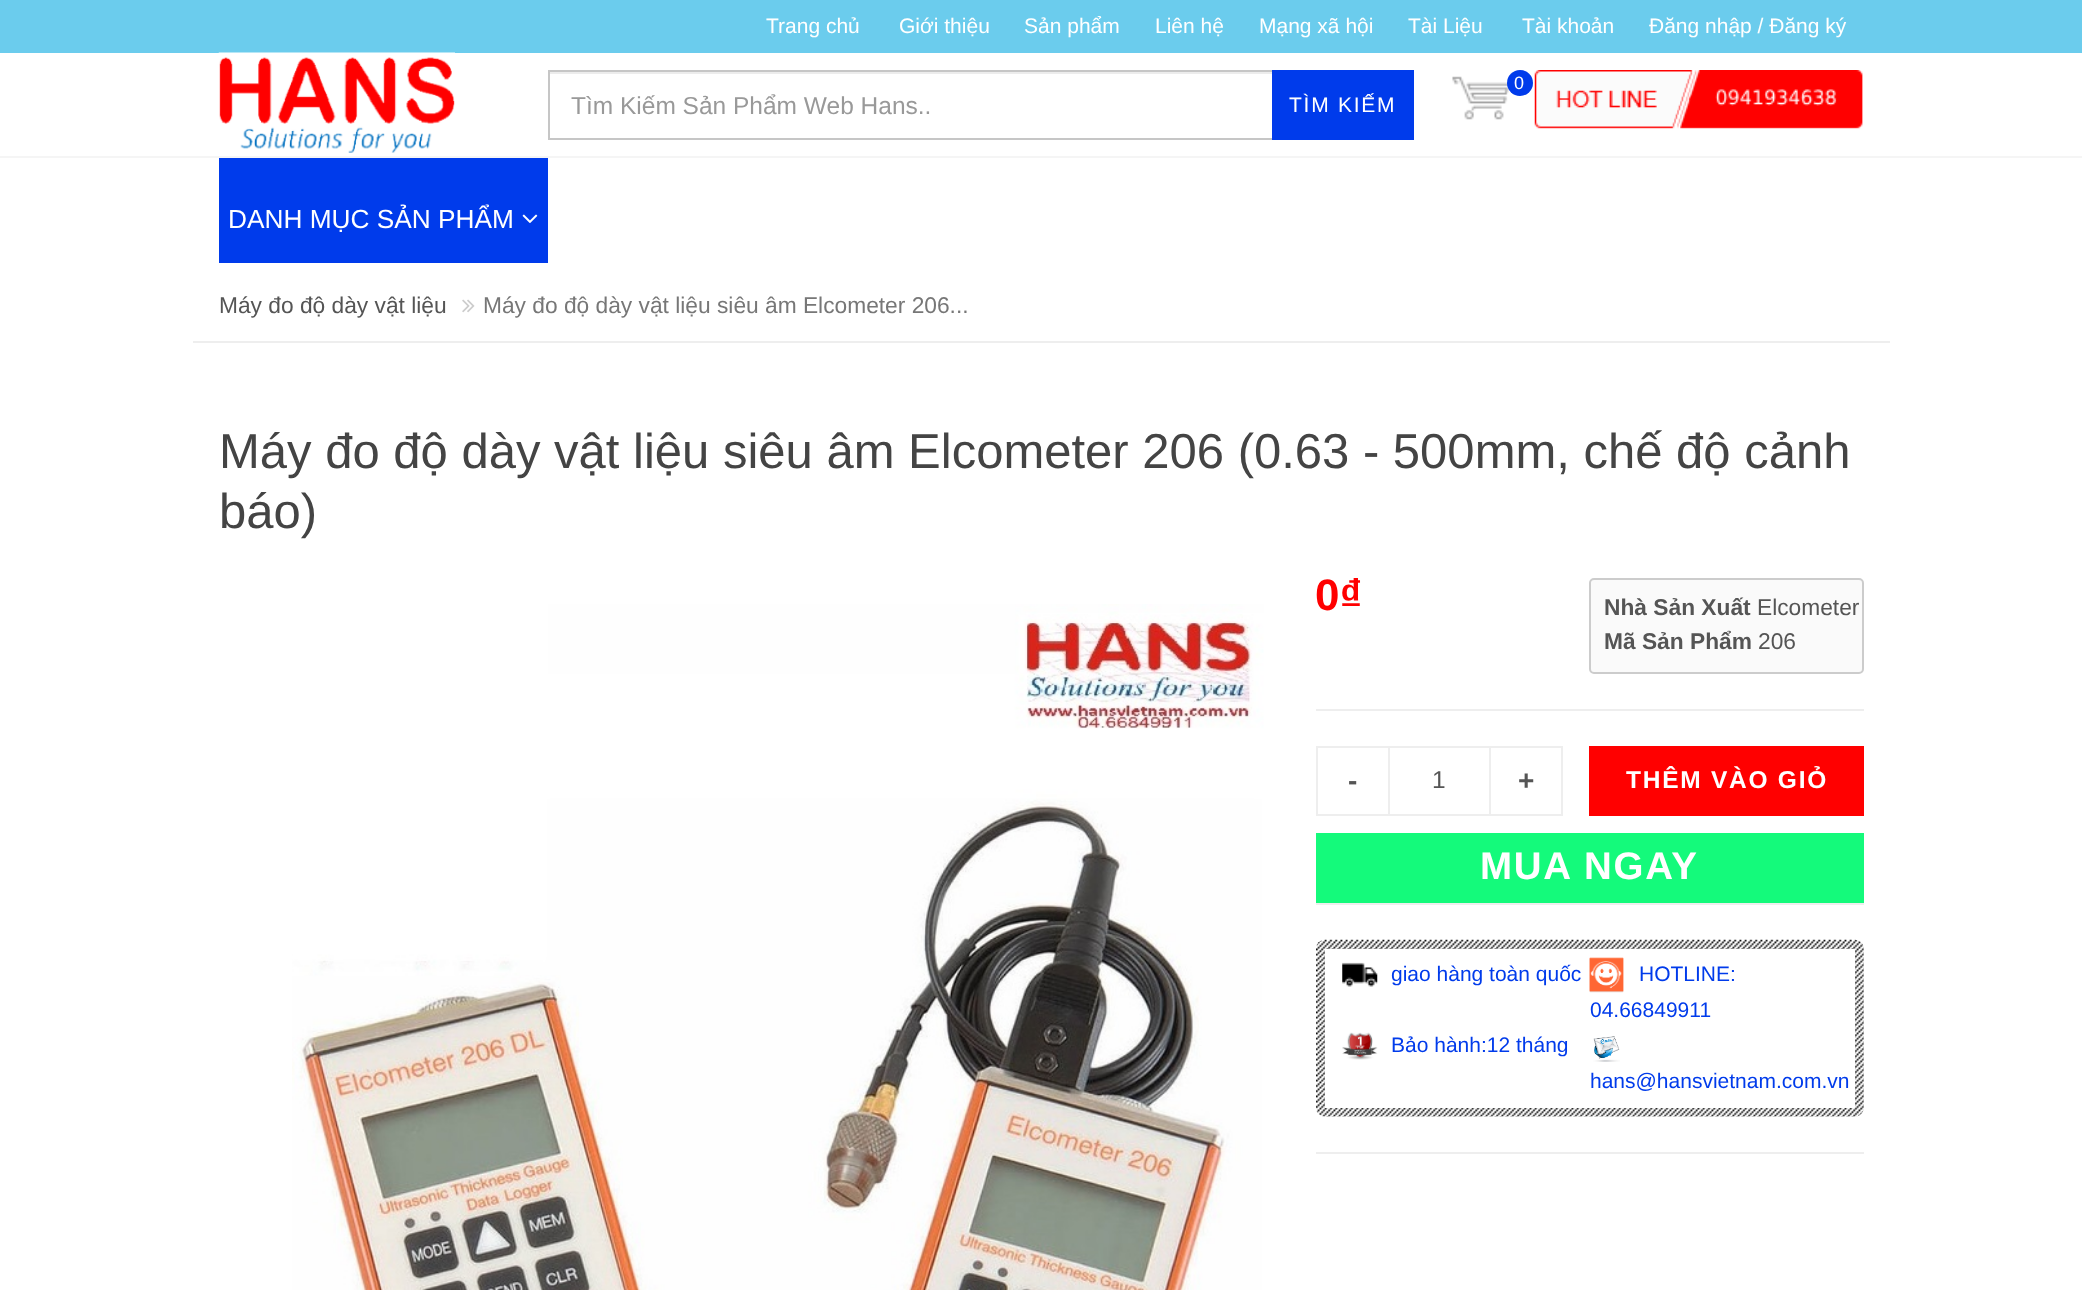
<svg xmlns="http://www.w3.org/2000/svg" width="2082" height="1290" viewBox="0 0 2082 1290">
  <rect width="100%" height="100%" fill="#ffffff"/>
  <rect x="0" y="0" width="2082" height="53" fill="#6bcced"/>
  <text x="766" y="33" font-family="Liberation Sans" font-size="21" fill="#ffffff">Trang chủ</text>
  <text x="899" y="33" font-family="Liberation Sans" font-size="21" fill="#ffffff">Giới thiệu</text>
  <text x="1024" y="33" font-family="Liberation Sans" font-size="21" fill="#ffffff">Sản phẩm</text>
  <text x="1155" y="33" font-family="Liberation Sans" font-size="21" fill="#ffffff">Liên hệ</text>
  <text x="1259" y="33" font-family="Liberation Sans" font-size="21" fill="#ffffff">Mạng xã hội</text>
  <text x="1408" y="33" font-family="Liberation Sans" font-size="21" fill="#ffffff">Tài Liệu</text>
  <text x="1522" y="33" font-family="Liberation Sans" font-size="21" fill="#ffffff">Tài khoản</text>
  <text x="1649" y="33" font-family="Liberation Sans" font-size="21" fill="#ffffff">Đăng nhập / Đăng ký</text>
  <rect x="0" y="156" width="2082" height="2" fill="#f5f5f5"/>
  <image x="218" y="52" width="237" height="101" href="img1.png"/>
  <image x="1452" y="76" width="57" height="44" href="img2.png"/>
  <circle cx="1520" cy="83" r="13" fill="#003beb"/>
  <text x="1514" y="89" font-family="Liberation Sans" font-size="18" fill="#ffffff">0</text>
  <image x="1534" y="70" width="329" height="59" href="img3.png"/>
  <rect x="550" y="72" width="729" height="2" fill="#ececec"/>
  <rect x="548" y="70" width="731" height="2" fill="#c6c6c6"/>
  <rect x="548" y="138" width="731" height="2" fill="#c6c6c6"/>
  <rect x="548" y="70" width="2" height="70" fill="#c6c6c6"/>
  <text x="571" y="114" font-family="Liberation Sans" font-size="24.5" fill="#999999">Tìm Kiếm Sản Phẩm Web Hans..</text>
  <rect x="1272" y="70" width="142" height="70" fill="#003beb"/>
  <text x="1289" y="112" font-family="Liberation Sans" font-size="21" letter-spacing="1.75" fill="#ffffff">TÌM KIẾM</text>
  <rect x="219" y="158" width="329" height="105" fill="#003beb"/>
  <text x="228" y="228" font-family="Liberation Sans" font-size="26.25" fill="#ffffff">DANH MỤC SẢN PHẨM</text>
  <image x="522" y="214" width="16" height="9" href="img4.png"/>
  <rect x="193" y="341" width="1697" height="2" fill="#eeeeee"/>
  <text x="219" y="313" font-family="Liberation Sans" font-size="22.75" fill="#555555">Máy đo độ dày vật liệu</text>
  <image x="462" y="299" width="13" height="14" href="img5.png"/>
  <text x="483" y="313" font-family="Liberation Sans" font-size="22.75" fill="#777777">Máy đo độ dày vật liệu siêu âm Elcometer 206...</text>
  <text x="219" y="468" font-family="Liberation Sans" font-size="49" fill="#444444">Máy đo độ dày vật liệu siêu âm Elcometer 206 (0.63 - 500mm, chế độ cảnh</text>
  <text x="219" y="528" font-family="Liberation Sans" font-size="49" fill="#444444">báo)</text>
  <image x="292" y="604" width="972" height="686" href="img6.png"/>
  <text x="1315" y="610" font-family="Liberation Sans" font-size="44" font-weight="bold" fill="#ff0000">0₫</text>
  <rect x="1590" y="579" width="273" height="94" rx="4" fill="#fafafa" stroke="#cccccc" stroke-width="2"/>
  <text x="1604" y="615" font-family="Liberation Sans" font-size="22.75" font-weight="bold" fill="#555555">Nhà Sản Xuất</text>
  <text x="1757" y="615" font-family="Liberation Sans" font-size="22.75" fill="#555555">Elcometer</text>
  <text x="1604" y="649" font-family="Liberation Sans" font-size="22.75" font-weight="bold" fill="#555555">Mã Sản Phẩm</text>
  <text x="1758" y="649" font-family="Liberation Sans" font-size="22.75" fill="#555555">206</text>
  <rect x="1316" y="709" width="548" height="2" fill="#eeeeee"/>
  <rect x="1317" y="747" width="72" height="68" fill="none" stroke="#eeeeee" stroke-width="2"/>
  <text x="1348" y="790" font-family="Liberation Sans" font-size="28" font-weight="bold" fill="#555555">-</text>
  <rect x="1390" y="746" width="99" height="2" fill="#eeeeee"/>
  <rect x="1390" y="814" width="99" height="2" fill="#eeeeee"/>
  <text x="1432" y="788" font-family="Liberation Sans" font-size="24.5" fill="#555555">1</text>
  <rect x="1490" y="747" width="72" height="68" fill="none" stroke="#eeeeee" stroke-width="2"/>
  <text x="1518" y="790" font-family="Liberation Sans" font-size="28" font-weight="bold" fill="#555555">+</text>
  <rect x="1589" y="746" width="275" height="70" fill="#ff0000"/>
  <text x="1626" y="788" font-family="Liberation Sans" font-size="24.5" font-weight="bold" letter-spacing="1.75" fill="#ffffff">THÊM VÀO GIỎ</text>
  <rect x="1316" y="833" width="548" height="70" fill="#14fa7b"/>
  <text x="1480" y="879" font-family="Liberation Sans" font-size="38.5" font-weight="bold" letter-spacing="1.75" fill="#ffffff">MUA NGAY</text>
  <rect x="1316" y="903" width="548" height="2" fill="#eeeeee"/>
  <image x="1316" y="939" width="548" height="178" href="img7.png"/>
  <rect x="1325" y="949" width="530" height="159" fill="#ffffff"/>
  <image x="1342" y="962" width="36" height="25" href="img8.png"/>
  <text x="1391" y="981" font-family="Liberation Sans" font-size="21" fill="#003beb">giao hàng toàn quốc</text>
  <image x="1589" y="957" width="35" height="36" href="img9.png"/>
  <text x="1639" y="981" font-family="Liberation Sans" font-size="21" fill="#003beb">HOTLINE:</text>
  <text x="1590" y="1017" font-family="Liberation Sans" font-size="21" fill="#003beb">04.66849911</text>
  <image x="1342" y="1032" width="36" height="28" href="img10.png"/>
  <text x="1391" y="1052" font-family="Liberation Sans" font-size="21" fill="#003beb">Bảo hành:12 tháng</text>
  <image x="1593" y="1036" width="27" height="26" href="img11.png"/>
  <text x="1590" y="1088" font-family="Liberation Sans" font-size="21" fill="#003beb">hans@hansvietnam.com.vn</text>
  <rect x="1316" y="1152" width="548" height="2" fill="#eeeeee"/>
</svg>
